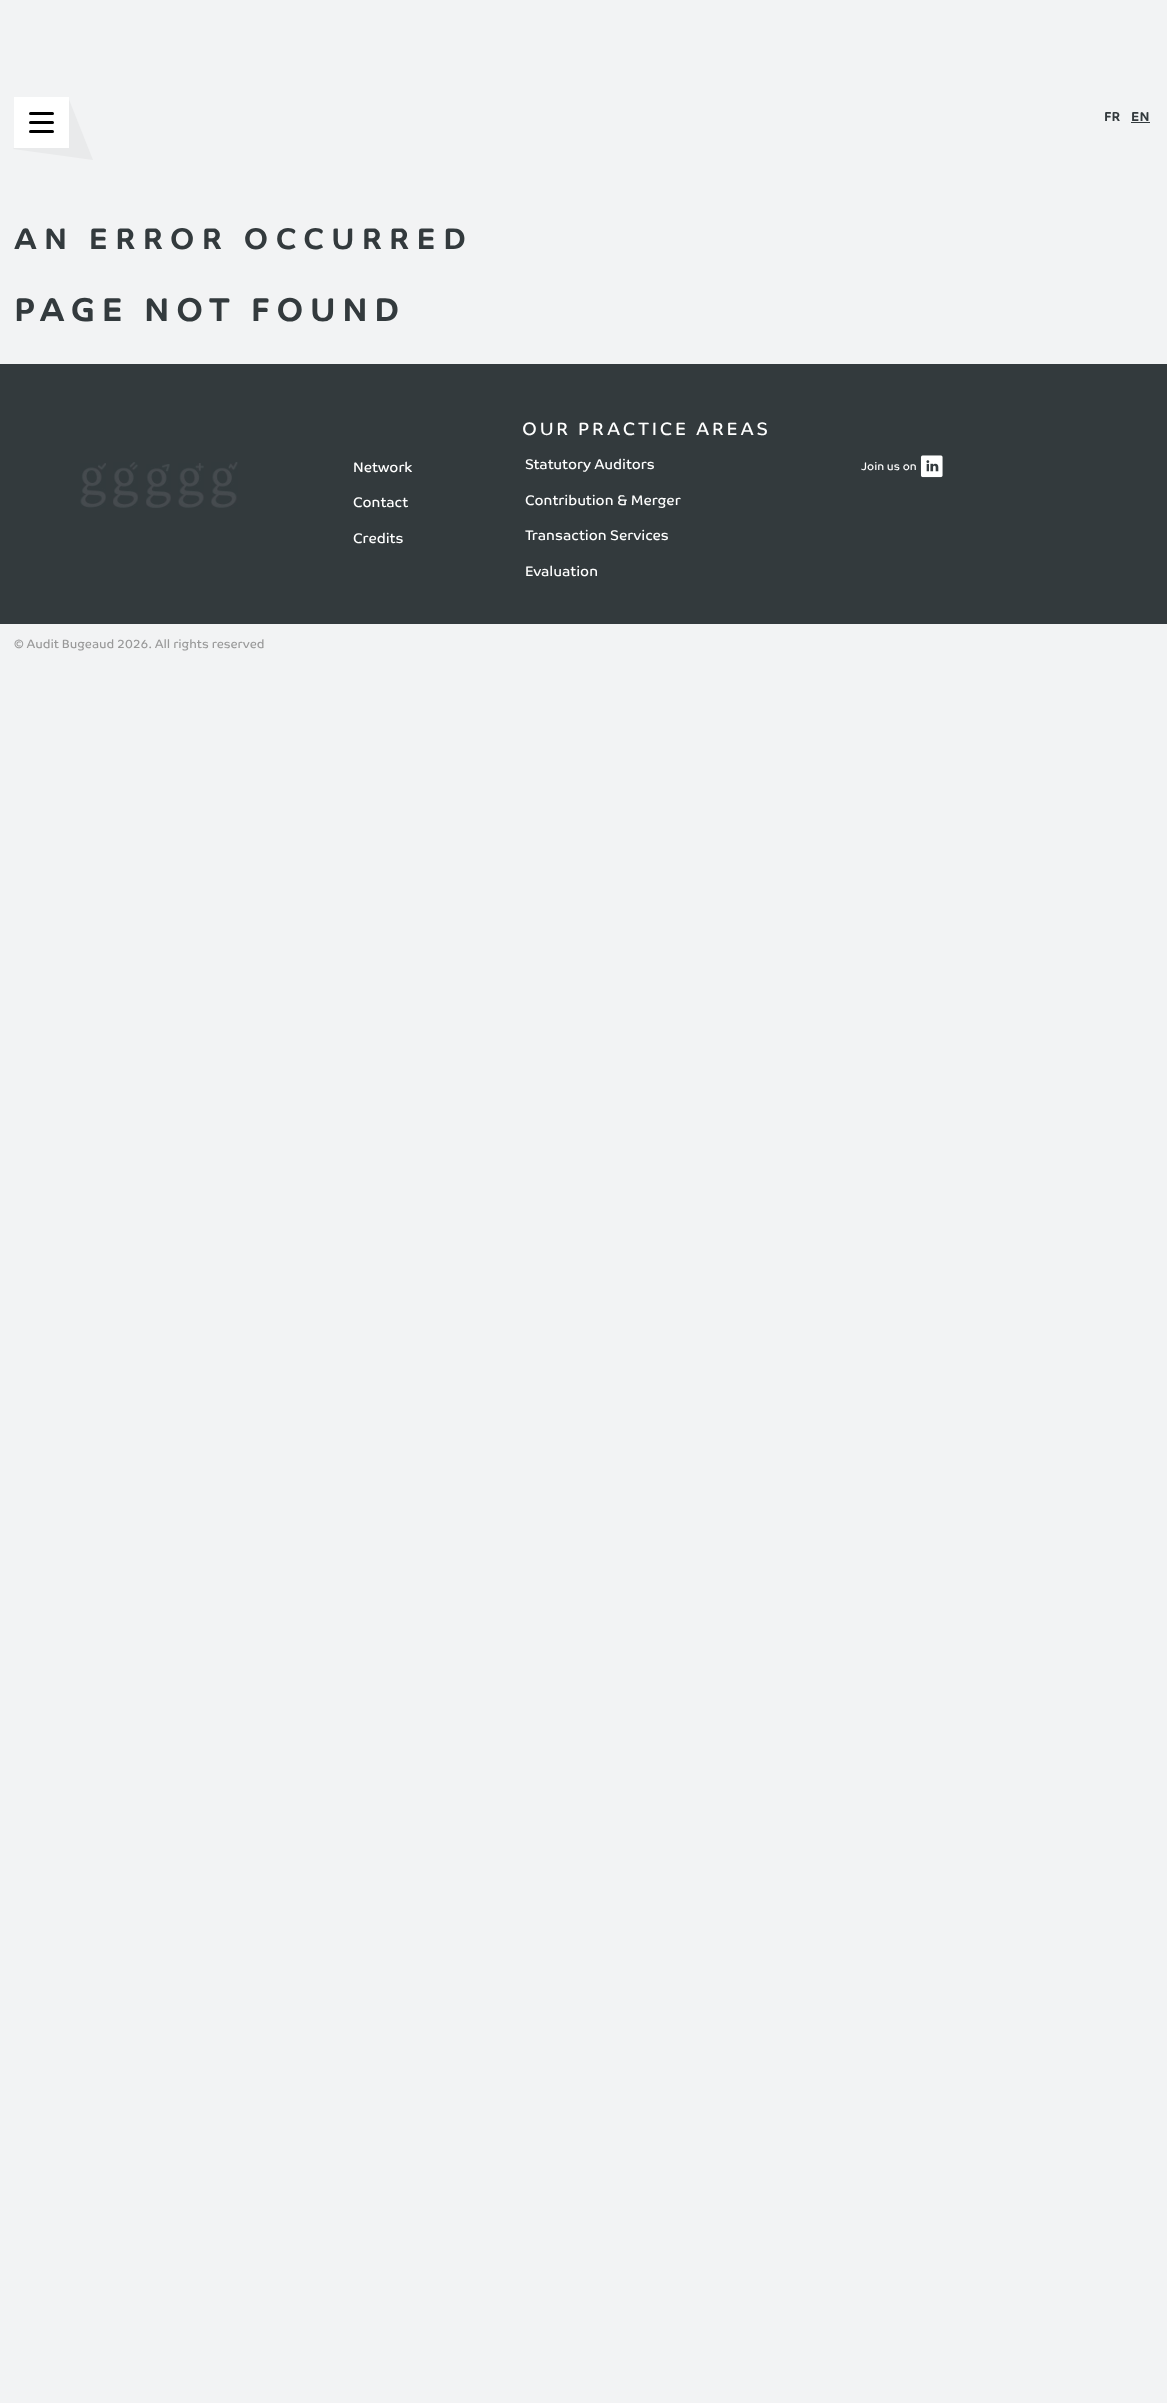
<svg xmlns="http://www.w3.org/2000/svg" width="1167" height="2403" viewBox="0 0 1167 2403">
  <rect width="100%" height="100%" fill="#f2f3f4"/>
  <path d="M93 160L13 149L68 97Z" fill="#e9eaeb"/>
  <rect x="14" y="97" width="55" height="51" fill="#ffffff"/>
  <rect x="29" y="112" width="25" height="3" rx="1.5" fill="#000000"/>
  <rect x="29" y="121" width="25" height="3" rx="1.5" fill="#000000"/>
  <rect x="29" y="130" width="25" height="3" rx="1.5" fill="#000000"/>
  <text x="1104" y="121" font-family="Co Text" font-size="13" font-weight="bold" fill="#333a3d">FR</text>
  <text x="1131" y="121" font-family="Co Text" font-size="13" font-weight="bold" fill="#333a3d">EN</text>
  <rect x="1131" y="122" width="19" height="1" fill="#333a3d"/>
  <text x="14" y="249" font-family="Co Text" font-size="30" font-weight="bold" letter-spacing="7.25" fill="#333a3d">AN ERROR OCCURRED</text>
  <text x="14" y="321" font-family="Co Text" font-size="33" font-weight="bold" letter-spacing="6.6" fill="#333a3d">PAGE NOT FOUND</text>
  <rect x="0" y="364" width="1167" height="260" fill="#333a3d"/>
  <image x="80" y="463" width="26" height="45" href="img1.png"/>
  <image x="113" y="462" width="25" height="46" href="img2.png"/>
  <image x="146" y="464" width="25" height="44" href="img3.png"/>
  <image x="178" y="463" width="26" height="45" href="img4.png"/>
  <image x="211" y="462" width="27" height="46" href="img5.png"/>
  <text x="353" y="472" font-family="Co Text" font-size="14" fill="#ffffff">Network</text>
  <text x="353" y="507" font-family="Co Text" font-size="14" fill="#ffffff">Contact</text>
  <text x="353" y="543" font-family="Co Text" font-size="14" fill="#ffffff">Credits</text>
  <text x="522" y="435" font-family="Co Text" font-size="18" letter-spacing="2.75" fill="#ffffff">OUR PRACTICE AREAS</text>
  <text x="525" y="469" font-family="Co Text" font-size="14" fill="#ffffff">Statutory Auditors</text>
  <text x="525" y="505" font-family="Co Text" font-size="14" fill="#ffffff">Contribution &amp; Merger</text>
  <text x="525" y="540" font-family="Co Text" font-size="14" fill="#ffffff">Transaction Services</text>
  <text x="525" y="576" font-family="Co Text" font-size="14" fill="#ffffff">Evaluation</text>
  <image x="920" y="455" width="23" height="23" href="img6.png"/>
  <text x="861" y="470" font-family="Co Text" font-size="11" fill="#ffffff">Join us on</text>
  <text x="14" y="648" font-family="Co Text" font-size="12" fill="#999999">© Audit Bugeaud 2026. All rights reserved</text>
</svg>
